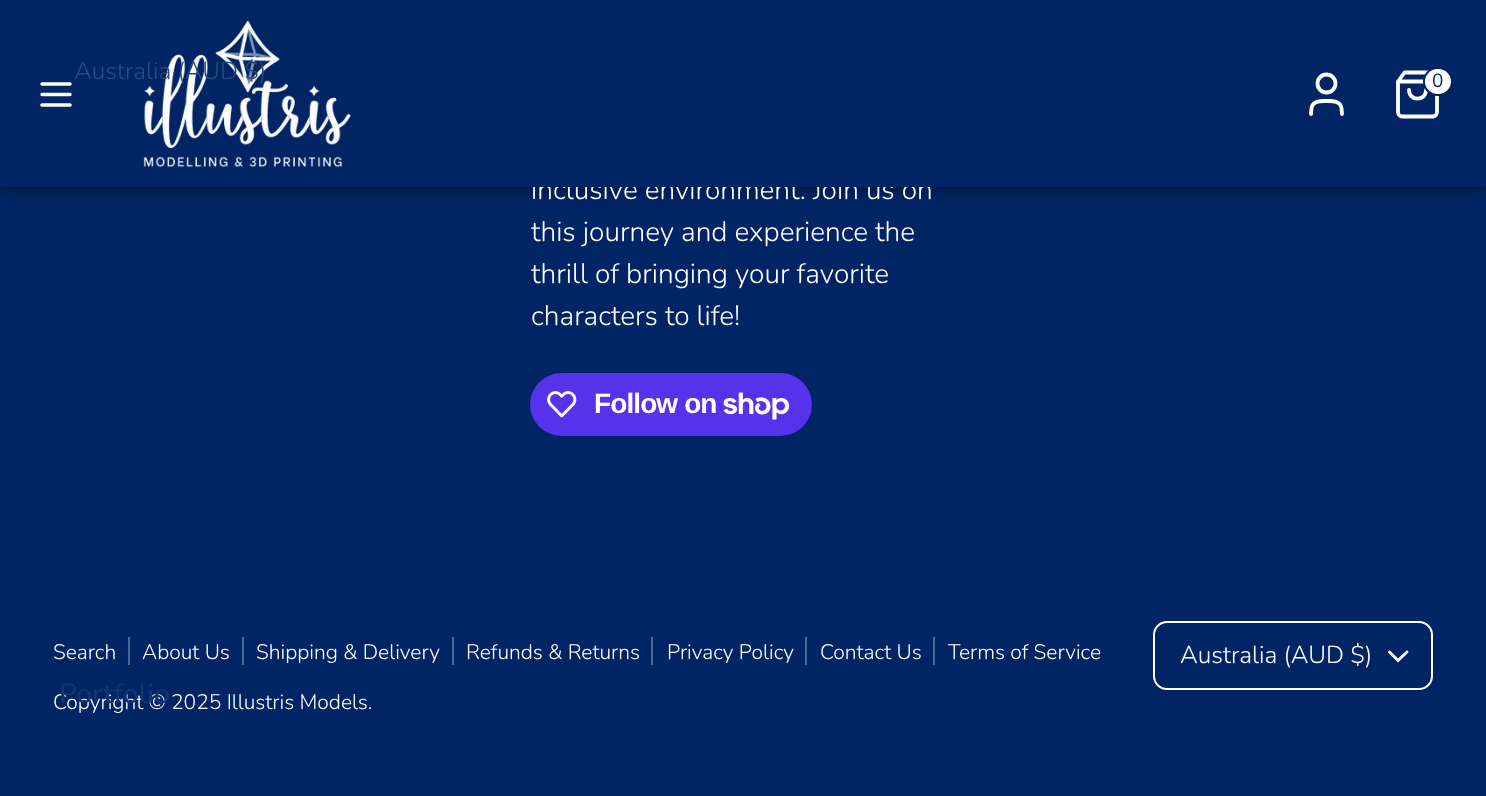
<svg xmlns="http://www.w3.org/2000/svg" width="1486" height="796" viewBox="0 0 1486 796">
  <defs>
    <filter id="blur1" x="-50%" y="-200%" width="200%" height="500%"><feGaussianBlur stdDeviation="9"/></filter>
  </defs>
  <rect width="100%" height="100%" fill="#002464"/>
  <rect x="0" y="-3" width="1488" height="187" fill="#000000" fill-opacity="0.75" filter="url(#blur1)"/>
  <text x="531" y="199" font-family="Nunito" font-size="28" font-weight="300" fill="#ffffff">inclusive environment. Join us on</text>
  <rect x="0" y="0" width="1486" height="187" fill="#002464"/>
  <image x="143" y="21" width="208" height="147" href="img1.png"/>
  <text x="74" y="79" font-family="Nunito" font-size="24.5" font-weight="300" fill="#2b497e">Australia (AUD $)</text>
  <text x="53" y="709" font-family="Nunito" font-size="21" font-weight="300" fill="#ffffff">Copyright © 2025 Illustris Models.</text>
  <text x="59" y="703" font-family="Nunito" font-size="28" font-weight="600" fill="#12346f">Portfolio</text>
  <path d="M1342 114L1341.5 108C1340 100.5 1332.5 101 1326.5 101C1320.5 101 1313 100.5 1311.5 108L1311 114" fill="none" stroke="#ffffff" stroke-width="3.8" stroke-linecap="round" stroke-linejoin="round"/>
  <circle cx="1326.5" cy="83.5" r="9" fill="none" stroke="#ffffff" stroke-width="3.8"/>
  <path d="M1404.5 72.5L1398 81.5V112C1398 114.5 1400 116.5 1402 116.5H1433C1435 116.5 1437 114.5 1437 112V81.5L1430.5 72.5ZM1398 81.5H1437M1426 90C1426 101.5 1409 101.5 1409 90" fill="none" stroke="#ffffff" stroke-width="3.8" stroke-linecap="round" stroke-linejoin="round"/>
  <rect x="1424" y="68" width="28" height="27" rx="13.5" fill="#ffffff" stroke="#002464" stroke-width="2"/>
  <text x="1432" y="87" font-family="Nunito" font-size="19" fill="#002464">0</text>
  <path d="M42 94.5H70M42 84H70M42 105H70" fill="none" stroke="#ffffff" stroke-width="3.5" stroke-linecap="round" stroke-linejoin="round"/>
  <text x="531" y="241" font-family="Nunito" font-size="28" font-weight="300" fill="#ffffff">this journey and experience the</text>
  <text x="531" y="283" font-family="Nunito" font-size="28" font-weight="300" fill="#ffffff">thrill of bringing your favorite</text>
  <text x="531" y="325" font-family="Nunito" font-size="28" font-weight="300" fill="#ffffff">characters to life!</text>
  <rect x="530" y="373" width="282" height="63" rx="31.5" fill="#5433eb"/>
  <image x="547" y="391" width="30" height="27" href="img2.png"/>
  <text x="594" y="413" font-family="Liberation Sans" font-size="28" font-weight="bold" letter-spacing="-0.9" fill="#ffffff">Follow on</text>
  <image x="723" y="392" width="67" height="28" href="img3.png"/>
  <text x="53" y="659" font-family="Nunito" font-size="21" font-weight="300" fill="#ffffff">Search</text>
  <rect x="128" y="637" width="2" height="28" fill="#4d6693"/>
  <text x="142" y="659" font-family="Nunito" font-size="21" font-weight="300" fill="#ffffff">About Us</text>
  <rect x="242" y="637" width="2" height="28" fill="#4d6693"/>
  <text x="256" y="659" font-family="Nunito" font-size="21" font-weight="300" fill="#ffffff">Shipping &amp; Delivery</text>
  <rect x="452" y="637" width="2" height="28" fill="#4d6693"/>
  <text x="466" y="659" font-family="Nunito" font-size="21" font-weight="300" fill="#ffffff">Refunds &amp; Returns</text>
  <rect x="651" y="637" width="2" height="28" fill="#4d6693"/>
  <text x="667" y="659" font-family="Nunito" font-size="21" font-weight="300" fill="#ffffff">Privacy Policy</text>
  <rect x="805" y="637" width="2" height="28" fill="#4d6693"/>
  <text x="820" y="659" font-family="Nunito" font-size="21" font-weight="300" fill="#ffffff">Contact Us</text>
  <rect x="933" y="637" width="2" height="28" fill="#4d6693"/>
  <text x="948" y="659" font-family="Nunito" font-size="21" font-weight="300" fill="#ffffff">Terms of Service</text>
  <rect x="1154" y="622" width="278" height="67" rx="13" fill="none" stroke="#ffffff" stroke-width="2"/>
  <text x="1180" y="663" font-family="Nunito" font-size="24.5" font-weight="300" fill="#ffffff">Australia (AUD $)</text>
  <path d="M1389.5 652L1398 660.5L1407 652" fill="none" stroke="#ffffff" stroke-width="2.9" stroke-linecap="round"/>
</svg>
